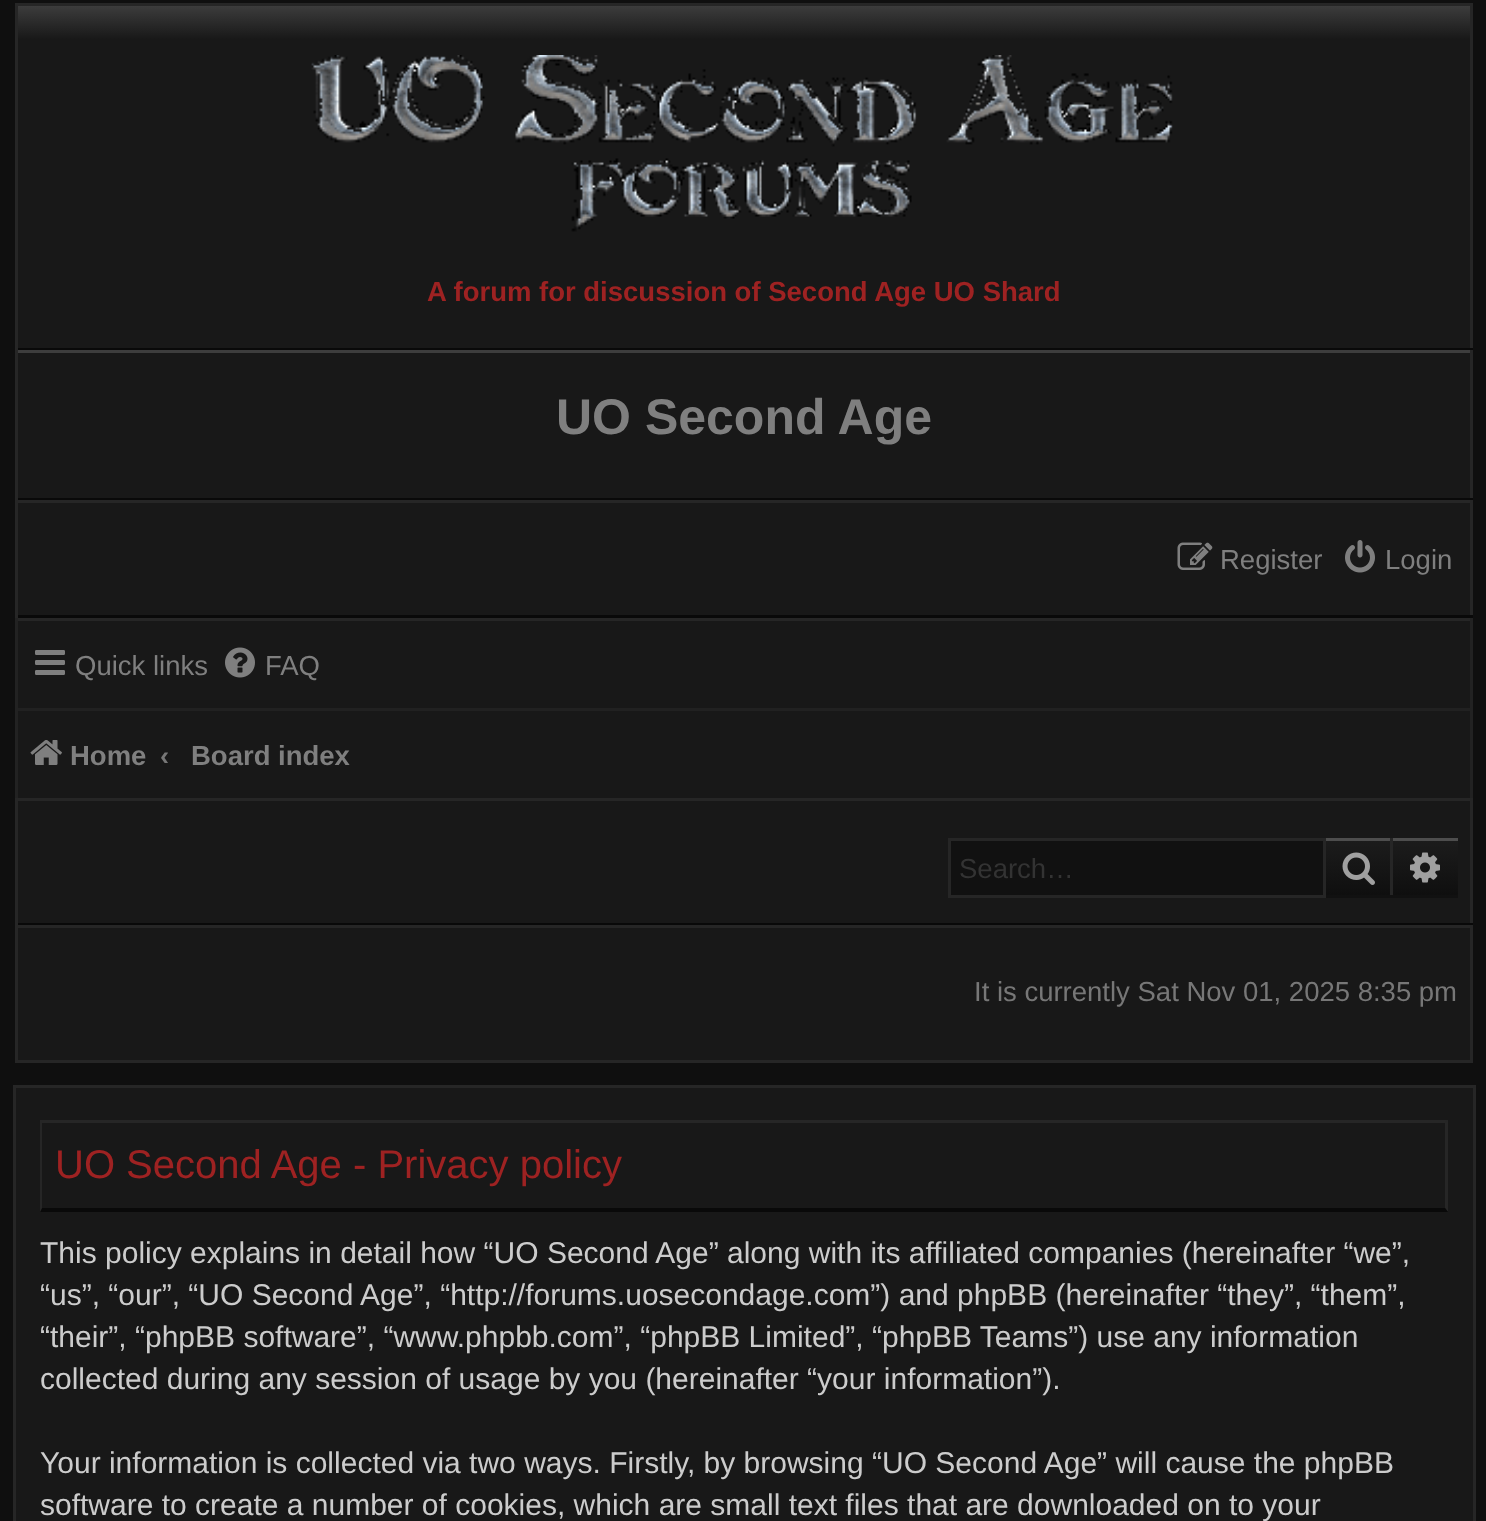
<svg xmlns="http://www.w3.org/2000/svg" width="1486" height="1521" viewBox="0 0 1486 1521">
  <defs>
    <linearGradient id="g1" gradientUnits="userSpaceOnUse" x1="744" y1="5" x2="744" y2="348"><stop offset="0" stop-color="#3d3d3d"/><stop offset="0.1" stop-color="#181818"/><stop offset="1" stop-color="#181818"/></linearGradient>
    <linearGradient id="g2" gradientUnits="userSpaceOnUse" x1="1358" y1="840" x2="1358" y2="895"><stop offset="0" stop-color="#1c1c1c"/><stop offset="1" stop-color="#0f0f0f"/></linearGradient>
    <linearGradient id="g3" gradientUnits="userSpaceOnUse" x1="1425" y1="840" x2="1425" y2="895"><stop offset="0" stop-color="#1c1c1c"/><stop offset="1" stop-color="#0f0f0f"/></linearGradient>
  </defs>
  <rect width="100%" height="100%" fill="#0f0f0f"/>
  <rect x="18" y="6" width="1452" height="342" fill="url(#g1)"/>
  <rect x="15" y="3" width="1458" height="3" fill="#262626"/>
  <rect x="1470" y="3" width="3" height="347" fill="#262626"/>
  <rect x="15" y="348" width="1458" height="2" fill="#090909"/>
  <rect x="15" y="3" width="3" height="347" fill="#262626"/>
  <image x="311" y="55" width="862" height="177" href="img1.png"/>
  <text x="427" y="301" font-family="Liberation Sans" font-size="27.5" font-weight="bold" fill="#9e2222">A forum for discussion of Second Age UO Shard</text>
  <rect x="18" y="353" width="1452" height="145" fill="#181818"/>
  <rect x="15" y="350" width="1458" height="3" fill="#3d3d3d"/>
  <rect x="1470" y="350" width="3" height="150" fill="#262626"/>
  <rect x="15" y="498" width="1458" height="2" fill="#090909"/>
  <rect x="15" y="350" width="3" height="150" fill="#262626"/>
  <text x="556" y="434" font-family="Liberation Sans" font-size="50" font-weight="bold" fill="#7f7f7f">UO Second Age</text>
  <rect x="18" y="503" width="1452" height="112" fill="#181818"/>
  <rect x="15" y="500" width="1458" height="3" fill="#262626"/>
  <rect x="1470" y="500" width="3" height="118" fill="#262626"/>
  <rect x="15" y="615" width="1458" height="3" fill="#090909"/>
  <rect x="15" y="500" width="3" height="118" fill="#262626"/>
  <image x="1177" y="542" width="36" height="28" href="img2.png"/>
  <text x="1220" y="569" font-family="Liberation Sans" font-size="27.5" fill="#7f7f7f">Register</text>
  <image x="1345" y="540" width="30" height="33" href="img3.png"/>
  <text x="1385" y="569" font-family="Liberation Sans" font-size="27.5" fill="#7f7f7f">Login</text>
  <rect x="18" y="621" width="1452" height="177" fill="#181818"/>
  <rect x="15" y="618" width="1458" height="3" fill="#262626"/>
  <rect x="1470" y="618" width="3" height="182" fill="#222222"/>
  <rect x="15" y="618" width="3" height="182" fill="#222222"/>
  <image x="35" y="650" width="30" height="25" href="img4.png"/>
  <text x="75" y="675" font-family="Liberation Sans" font-size="27.5" fill="#7f7f7f">Quick links</text>
  <image x="225" y="647" width="30" height="31" href="img5.png"/>
  <text x="265" y="675" font-family="Liberation Sans" font-size="27.5" fill="#7f7f7f">FAQ</text>
  <rect x="18" y="708" width="1452" height="3" fill="#212121"/>
  <image x="30" y="740" width="32" height="25" href="img6.png"/>
  <text x="70" y="765" font-family="Liberation Sans" font-size="27.5" font-weight="bold" fill="#7f7f7f">Home</text>
  <text x="160" y="765" font-family="Liberation Sans" font-size="27.5" font-weight="bold" fill="#777777">‹</text>
  <text x="191" y="765" font-family="Liberation Sans" font-size="27.5" font-weight="bold" fill="#7f7f7f">Board index</text>
  <rect x="18" y="801" width="1452" height="122" fill="#181818"/>
  <rect x="15" y="798" width="1458" height="3" fill="#262626"/>
  <rect x="1470" y="798" width="3" height="127" fill="#262626"/>
  <rect x="15" y="923" width="1458" height="2" fill="#090909"/>
  <rect x="15" y="798" width="3" height="127" fill="#262626"/>
  <rect x="1326" y="841" width="64" height="54" fill="url(#g2)"/>
  <rect x="1323" y="838" width="135" height="3" fill="#4d4d4d"/>
  <rect x="1390" y="838" width="3" height="60" fill="#262626"/>
  <rect x="1323" y="895" width="135" height="3" fill="#111111"/>
  <rect x="1323" y="838" width="3" height="60" fill="#262626"/>
  <image x="1342" y="852" width="33" height="33" href="img7.png"/>
  <rect x="951" y="841" width="372" height="54" fill="#111111"/>
  <rect x="948" y="838" width="375" height="3" fill="#262626"/>
  <rect x="948" y="895" width="375" height="3" fill="#262626"/>
  <rect x="948" y="838" width="3" height="60" fill="#262626"/>
  <text x="959" y="878" font-family="Liberation Sans" font-size="27.5" fill="#333333">Search…</text>
  <rect x="1393" y="841" width="65" height="54" fill="url(#g3)"/>
  <image x="1410" y="852" width="30" height="31" href="img8.png"/>
  <rect x="16.5" y="926.5" width="1455" height="135" fill="#181818" stroke="#262626" stroke-width="3"/>
  <text x="974" y="1001" font-family="Liberation Sans" font-size="27.5" fill="#777777">It is currently Sat Nov 01, 2025 8:35 pm</text>
  <rect x="16" y="1088" width="1457" height="433" fill="#181818"/>
  <rect x="13" y="1085" width="1462" height="3" fill="#262626"/>
  <rect x="1473" y="1085" width="3" height="436" fill="#262626"/>
  <rect x="13" y="1085" width="3" height="436" fill="#262626"/>
  <rect x="40" y="1120" width="1408" height="3" fill="#262626"/>
  <path d="M1448 1120V1212L1445 1208V1122Z" fill="#262626"/>
  <path d="M1448 1212H40L42 1208H1445Z" fill="#090909"/>
  <path d="M40 1212V1120L42 1122V1208Z" fill="#262626"/>
  <text x="55" y="1178" font-family="Liberation Sans" font-size="40" fill="#9e2222">UO Second Age - Privacy policy</text>
  <text x="40" y="1263" font-family="Liberation Sans" font-size="30" fill="#cccccc">This policy explains in detail how “UO Second Age” along with its affiliated companies (hereinafter “we”,</text>
  <text x="40" y="1305" font-family="Liberation Sans" font-size="30" fill="#cccccc">“us”, “our”, “UO Second Age”, “http://forums.uosecondage.com”) and phpBB (hereinafter “they”, “them”,</text>
  <text x="40" y="1347" font-family="Liberation Sans" font-size="30" fill="#cccccc">“their”, “phpBB software”, “www.phpbb.com”, “phpBB Limited”, “phpBB Teams”) use any information</text>
  <text x="40" y="1389" font-family="Liberation Sans" font-size="30" fill="#cccccc">collected during any session of usage by you (hereinafter “your information”).</text>
  <text x="40" y="1473" font-family="Liberation Sans" font-size="30" fill="#cccccc">Your information is collected via two ways. Firstly, by browsing “UO Second Age” will cause the phpBB</text>
  <text x="40" y="1515" font-family="Liberation Sans" font-size="30" fill="#cccccc">software to create a number of cookies, which are small text files that are downloaded on to your</text>
</svg>
